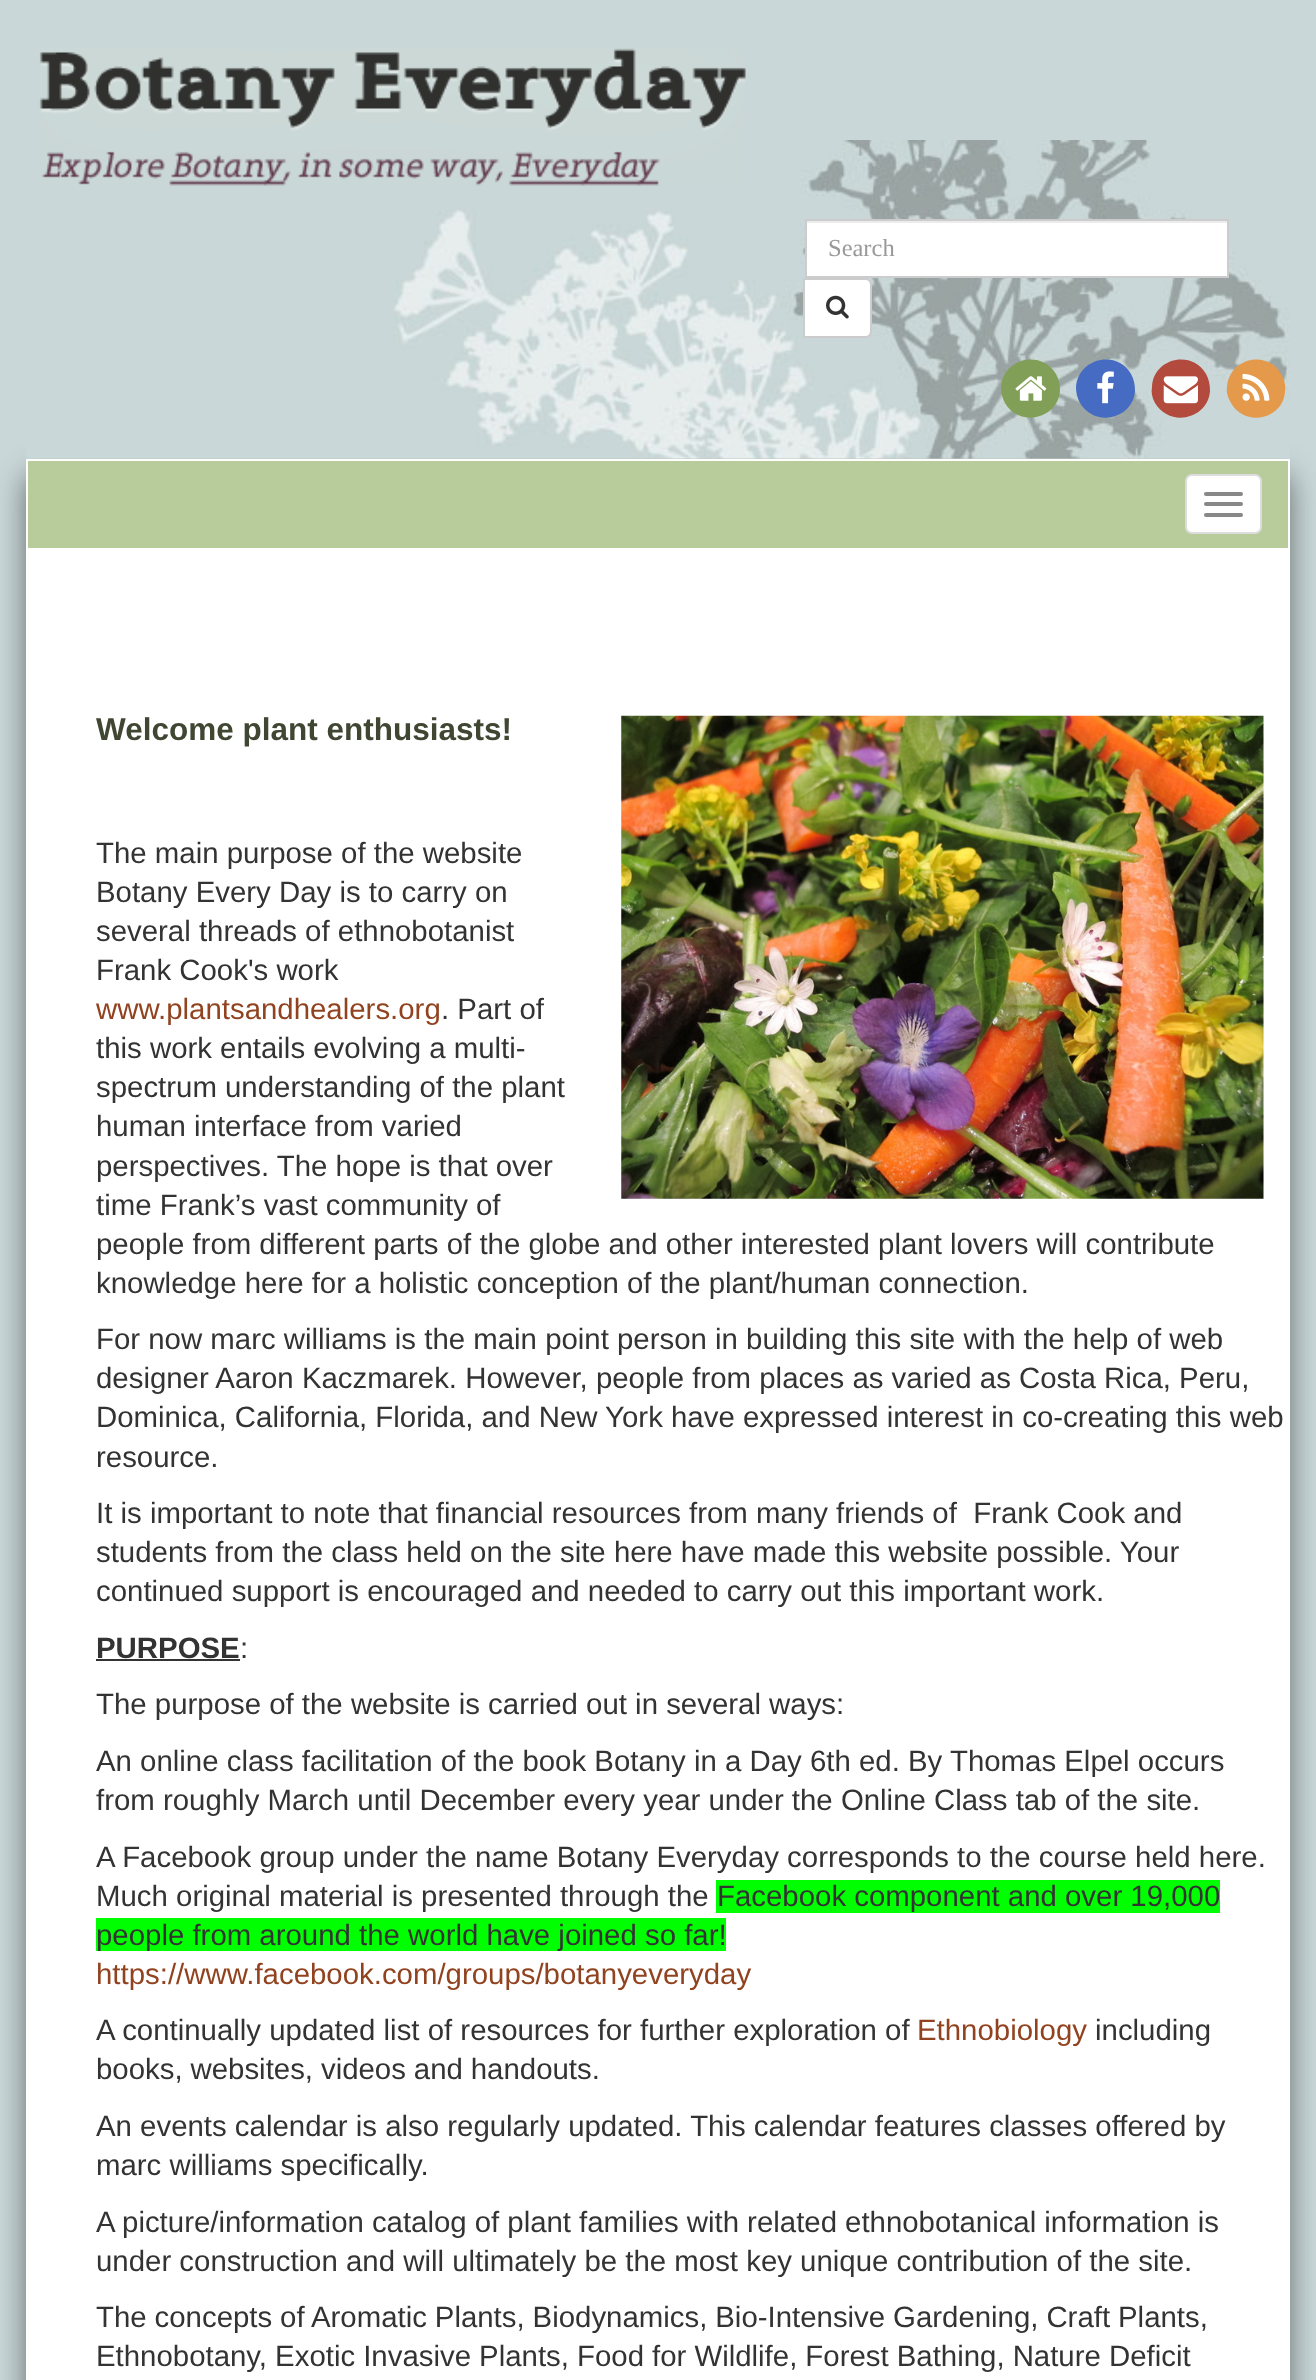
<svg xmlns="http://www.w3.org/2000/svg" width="1316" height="2380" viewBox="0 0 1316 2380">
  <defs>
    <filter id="blur1" x="-50%" y="-200%" width="200%" height="500%"><feGaussianBlur stdDeviation="15"/></filter>
  </defs>
  <rect width="100%" height="100%" fill="#c9d7d8"/>
  <rect x="26" y="474" width="1264" height="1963" rx="12" fill="#000000" fill-opacity="0.5" filter="url(#blur1)"/>
  <image x="26" y="140" width="1264" height="319" href="img1.png"/>
  <image x="39" y="48" width="707" height="138" href="img2.png"/>
  <rect x="807" y="223" width="420" height="53" fill="#ffffff"/>
  <rect x="807" y="221" width="420" height="2" fill="#ececec"/>
  <rect x="806" y="220" width="422" height="57" fill="none" stroke="#cccccc" stroke-width="2"/>
  <text x="828" y="256" font-family="Liberation Serif" font-size="24.5" fill="#999999">Search</text>
  <path d="M804 279H865C868.5 279 871 281.5 871 285V331C871 334.5 868.5 337 865 337H804Z" fill="#ffffff" stroke="#cccccc" stroke-width="2"/>
  <image x="826" y="295" width="23" height="24" href="img3.png"/>
  <path d="M1056 374C1059 379 1060 385 1060 391C1058 419 1019 428 1005 403C1002 398 1001 392 1001 387C1003 358 1041 349 1056 374Z" fill="#829f57"/>
  <image x="1015" y="376" width="32" height="25" href="img4.png"/>
  <path d="M1131 374C1134 379 1135 385 1135 391C1133 419 1095 428 1080 403C1077 398 1076 392 1076 387C1078 358 1117 349 1131 374Z" fill="#456bc3"/>
  <image x="1097" y="371" width="17" height="33" href="img5.png"/>
  <path d="M1206 374C1209 379 1210 385 1210 391C1208 419 1170 428 1155 403C1152 398 1151 392 1152 387C1153 358 1192 349 1206 374Z" fill="#b24b3d"/>
  <image x="1163" y="376" width="35" height="28" href="img6.png"/>
  <path d="M1281 374C1284 379 1286 385 1285 391C1284 419 1245 428 1231 403C1228 398 1226 392 1227 387C1229 358 1267 349 1281 374Z" fill="#e59a4b"/>
  <image x="1242" y="373" width="28" height="28" href="img7.png"/>
  <rect x="26" y="550" width="1264" height="1830" fill="#ffffff"/>
  <rect x="27" y="460" width="1262" height="89" fill="#b8cb9b" stroke="#ffffff" stroke-width="2"/>
  <rect x="1186" y="475" width="75" height="58" rx="6" fill="#ffffff" stroke="#dddddd" stroke-width="2"/>
  <rect x="1204" y="492" width="39" height="4" rx="2" fill="#888888"/>
  <rect x="1204" y="502" width="39" height="4" rx="2" fill="#888888"/>
  <rect x="1204" y="513" width="39" height="4" rx="2" fill="#888888"/>
  <text x="96" y="740" font-family="Liberation Sans" font-size="31.5" font-weight="bold" fill="#3f4733">Welcome plant enthusiasts!</text>
  <image x="621" y="715" width="643" height="484" href="img8.png"/>
  <text x="96" y="863" font-family="Liberation Sans" font-size="29.4" fill="#333333">The main purpose of the website</text>
  <text x="96" y="902" font-family="Liberation Sans" font-size="29.4" fill="#333333">Botany Every Day is to carry on</text>
  <text x="96" y="941" font-family="Liberation Sans" font-size="29.4" fill="#333333">several threads of ethnobotanist</text>
  <text x="96" y="980" font-family="Liberation Sans" font-size="29.4" fill="#333333">Frank Cook's work</text>
  <text x="96" y="1019" font-family="Liberation Sans" font-size="29.4" fill="#914320">www.plantsandhealers.org</text>
  <text x="441" y="1019" font-family="Liberation Sans" font-size="29.4" fill="#333333">. Part of</text>
  <text x="96" y="1058" font-family="Liberation Sans" font-size="29.4" fill="#333333">this work entails evolving a multi-</text>
  <text x="96" y="1097" font-family="Liberation Sans" font-size="29.4" fill="#333333">spectrum understanding of the plant</text>
  <text x="96" y="1136" font-family="Liberation Sans" font-size="29.4" fill="#333333">human interface from varied</text>
  <text x="96" y="1176" font-family="Liberation Sans" font-size="29.4" fill="#333333">perspectives. The hope is that over</text>
  <text x="96" y="1215" font-family="Liberation Sans" font-size="29.4" fill="#333333">time Frank’s vast community of</text>
  <text x="96" y="1254" font-family="Liberation Sans" font-size="29.4" fill="#333333">people from different parts of the globe and other interested plant lovers will contribute</text>
  <text x="96" y="1293" font-family="Liberation Sans" font-size="29.4" fill="#333333">knowledge here for a holistic conception of the plant/human connection.</text>
  <text x="96" y="1349" font-family="Liberation Sans" font-size="29.4" fill="#333333">For now marc williams is the main point person in building this site with the help of web</text>
  <text x="96" y="1388" font-family="Liberation Sans" font-size="29.4" fill="#333333">designer Aaron Kaczmarek. However, people from places as varied as Costa Rica, Peru,</text>
  <text x="96" y="1427" font-family="Liberation Sans" font-size="29.4" fill="#333333">Dominica, California, Florida, and New York have expressed interest in co-creating this web</text>
  <text x="96" y="1467" font-family="Liberation Sans" font-size="29.4" fill="#333333">resource.</text>
  <text x="96" y="1523" font-family="Liberation Sans" font-size="29.4" fill="#333333" xml:space="preserve">It is important to note that financial resources from many friends of  Frank Cook and</text>
  <text x="96" y="1562" font-family="Liberation Sans" font-size="29.4" fill="#333333">students from the class held on the site here have made this website possible. Your</text>
  <text x="96" y="1601" font-family="Liberation Sans" font-size="29.4" fill="#333333">continued support is encouraged and needed to carry out this important work.</text>
  <text x="96" y="1658" font-family="Liberation Sans" font-size="29.4" font-weight="bold" fill="#333333">PURPOSE</text>
  <text x="240" y="1658" font-family="Liberation Sans" font-size="29.4" fill="#333333">:</text>
  <rect x="96" y="1659" width="144" height="2" fill="#333333"/>
  <text x="96" y="1714" font-family="Liberation Sans" font-size="29.4" fill="#333333">The purpose of the website is carried out in several ways:</text>
  <text x="96" y="1771" font-family="Liberation Sans" font-size="29.4" fill="#333333">An online class facilitation of the book Botany in a Day 6th ed. By Thomas Elpel occurs</text>
  <text x="96" y="1810" font-family="Liberation Sans" font-size="29.4" fill="#333333">from roughly March until December every year under the Online Class tab of the site.</text>
  <text x="96" y="1867" font-family="Liberation Sans" font-size="29.4" fill="#333333">A Facebook group under the name Botany Everyday corresponds to the course held here.</text>
  <text x="96" y="1906" font-family="Liberation Sans" font-size="29.4" fill="#333333">Much original material is presented through the</text>
  <rect x="716" y="1880" width="504" height="33" fill="#00ff00"/>
  <text x="717" y="1906" font-family="Liberation Sans" font-size="29.4" fill="#333333">Facebook component and over 19,000</text>
  <rect x="96" y="1918" width="630" height="33" fill="#00ff00"/>
  <text x="96" y="1945" font-family="Liberation Sans" font-size="29.4" fill="#333333">people from around the world have joined so far!</text>
  <text x="96" y="1984" font-family="Liberation Sans" font-size="29.4" fill="#914320">https://www.facebook.com/groups/botanyeveryday</text>
  <text x="96" y="2040" font-family="Liberation Sans" font-size="29.4" fill="#333333">A continually updated list of resources for further exploration of</text>
  <text x="917" y="2040" font-family="Liberation Sans" font-size="29.4" fill="#914320">Ethnobiology</text>
  <text x="1095" y="2040" font-family="Liberation Sans" font-size="29.4" fill="#333333">including</text>
  <text x="96" y="2079" word-spacing="-0.25" font-family="Liberation Sans" font-size="29.4" fill="#333333">books, websites, videos and handouts.</text>
  <text x="96" y="2136" font-family="Liberation Sans" font-size="29.4" fill="#333333">An events calendar is also regularly updated. This calendar features classes offered by</text>
  <text x="96" y="2175" font-family="Liberation Sans" font-size="29.4" fill="#333333">marc williams specifically.</text>
  <text x="96" y="2232" word-spacing="-0.1" font-family="Liberation Sans" font-size="29.4" fill="#333333">A picture/information catalog of plant families with related ethnobotanical information is</text>
  <text x="96" y="2271" font-family="Liberation Sans" font-size="29.4" fill="#333333">under construction and will ultimately be the most key unique contribution of the site.</text>
  <text x="96" y="2327" word-spacing="-0.25" font-family="Liberation Sans" font-size="29.4" fill="#333333">The concepts of Aromatic Plants, Biodynamics, Bio-Intensive Gardening, Craft Plants,</text>
  <text x="96" y="2366" word-spacing="-0.1" font-family="Liberation Sans" font-size="29.4" fill="#333333">Ethnobotany, Exotic Invasive Plants, Food for Wildlife, Forest Bathing, Nature Deficit</text>
</svg>
